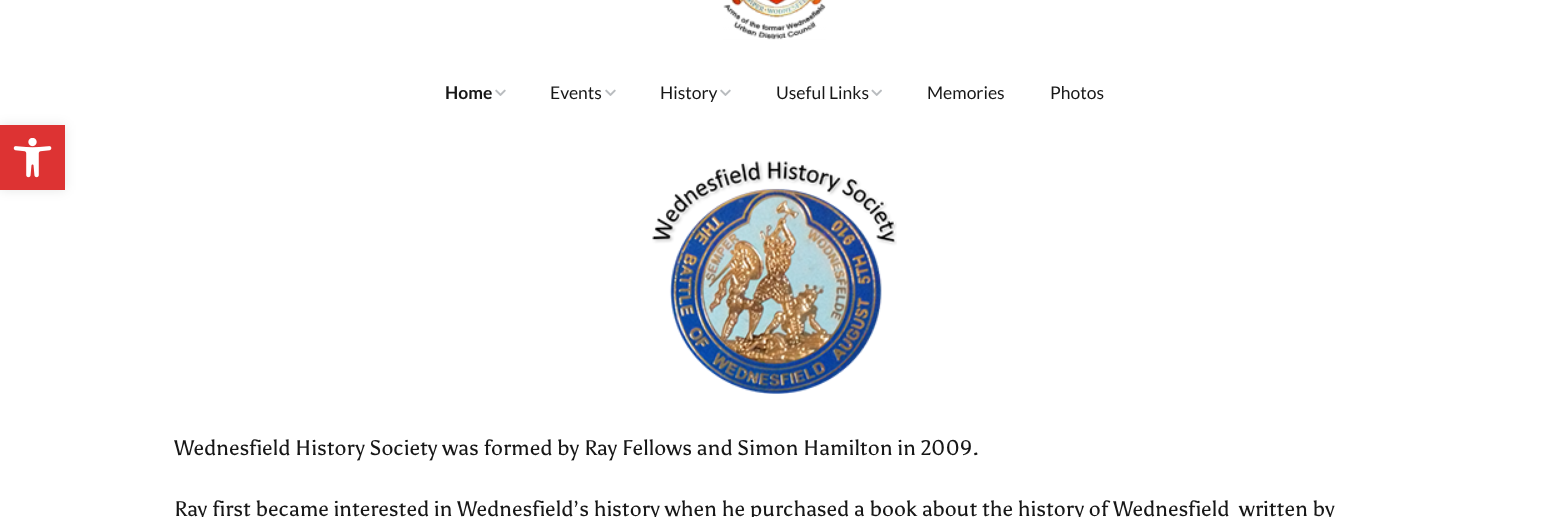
<svg xmlns="http://www.w3.org/2000/svg" width="1548" height="517" viewBox="0 0 1548 517">
  <defs>
    <filter id="blur1" x="-50%" y="-200%" width="200%" height="500%"><feGaussianBlur stdDeviation="6"/></filter>
  </defs>
  <rect width="100%" height="100%" fill="#ffffff"/>
  <rect x="0" y="125" width="65" height="65" fill="#000000" fill-opacity="0.1" filter="url(#blur1)"/>
  <rect x="0" y="125" width="65" height="65" fill="#dd3333"/>
  <image x="13" y="138" width="39" height="40" href="img1.png"/>
  <image x="723" y="0" width="103" height="40" href="img2.png"/>
  <text x="445" y="99" font-family="Lato" font-size="17.5" font-weight="bold" fill="#171717">Home</text>
  <image x="495" y="89" width="11" height="7" href="img3.png"/>
  <text x="550" y="99" font-family="Lato" font-size="17.5" fill="#171717">Events</text>
  <image x="605" y="89" width="11" height="7" href="img3.png"/>
  <text x="660" y="99" font-family="Lato" font-size="17.5" fill="#171717">History</text>
  <image x="720" y="89" width="11" height="7" href="img3.png"/>
  <text x="776" y="99" font-family="Lato" font-size="17.5" fill="#171717">Useful Links</text>
  <image x="871" y="89" width="11" height="7" href="img4.png"/>
  <text x="927" y="99" font-family="Lato" font-size="17.5" fill="#171717">Memories</text>
  <text x="1050" y="99" font-family="Lato" font-size="17.5" fill="#171717">Photos</text>
  <image x="652" y="161" width="245" height="233" href="img5.png"/>
  <text x="174" y="455" font-family="Asul" font-size="21.25" fill="#171717">Wednesfield History Society was formed by Ray Fellows and Simon Hamilton in 2009.</text>
  <text x="174" y="516" font-family="Asul" font-size="21.25" fill="#171717" xml:space="preserve">Ray first became interested in Wednesfield’s history when he purchased a book about the history of Wednesfield  written by</text>
</svg>
